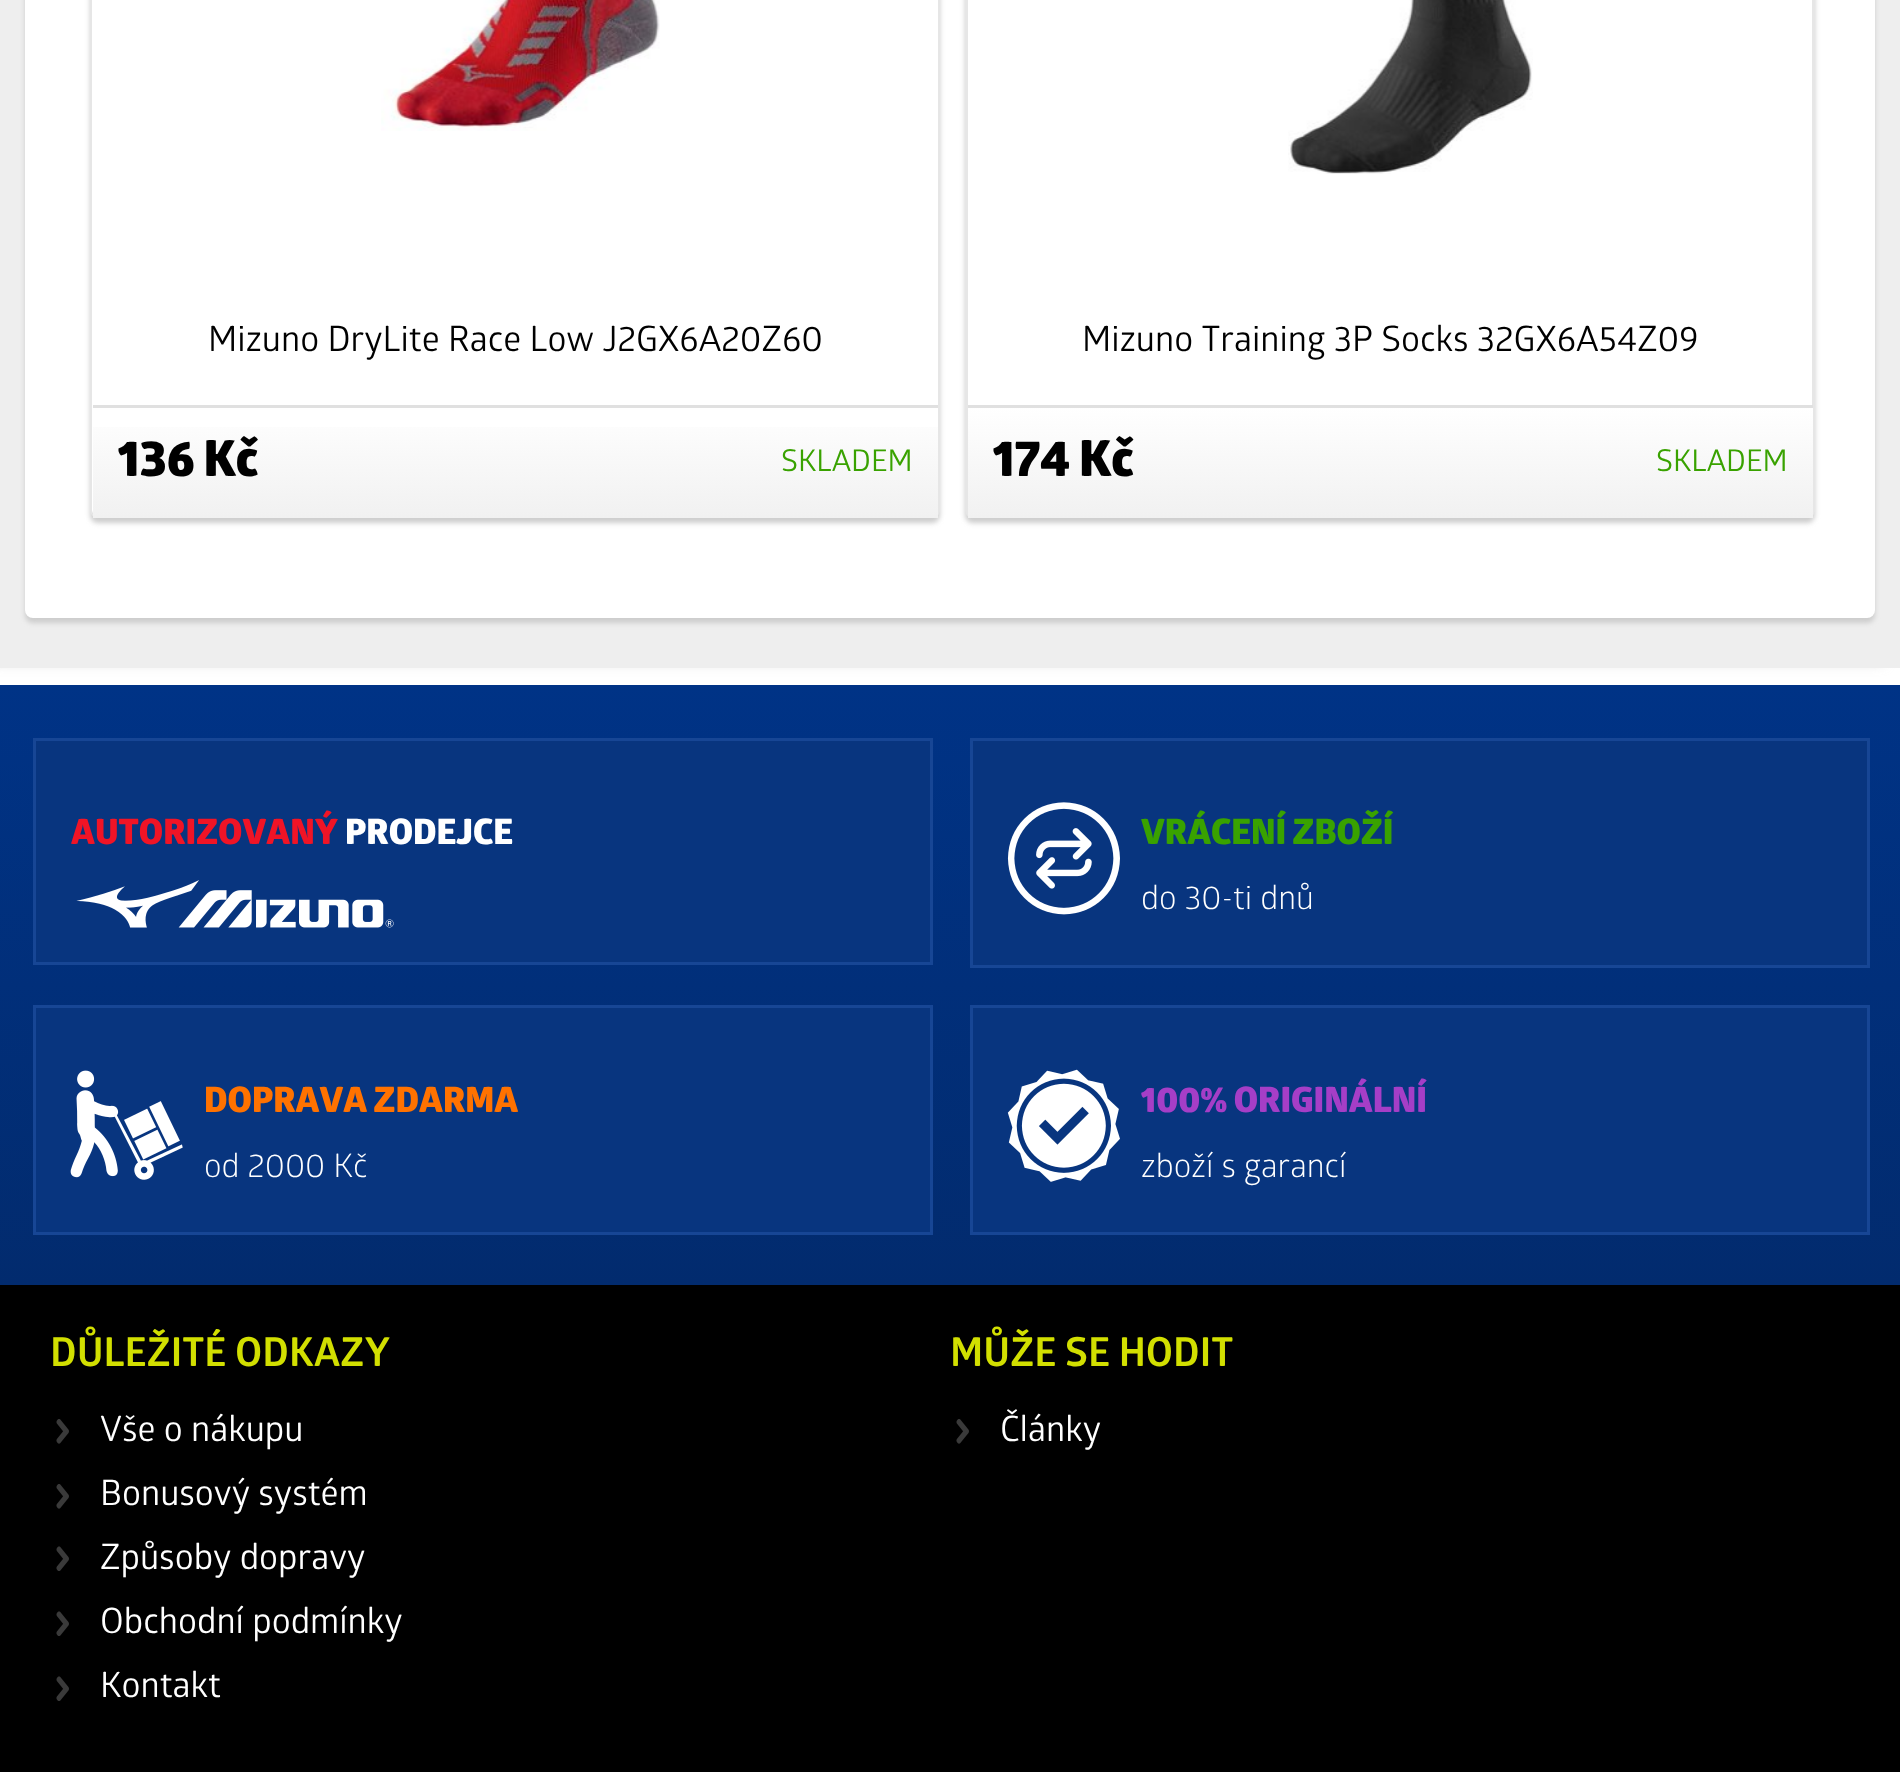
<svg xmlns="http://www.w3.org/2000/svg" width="1900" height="1772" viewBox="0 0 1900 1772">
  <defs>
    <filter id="blur1" x="-50%" y="-200%" width="200%" height="500%"><feGaussianBlur stdDeviation="6"/></filter>
    <filter id="blur2" x="-50%" y="-200%" width="200%" height="500%"><feGaussianBlur stdDeviation="2.5"/></filter>
    <linearGradient id="g1" gradientUnits="userSpaceOnUse" x1="515" y1="407" x2="515" y2="518"><stop offset="0" stop-color="#ffffff"/><stop offset="1" stop-color="#f1f1f1"/></linearGradient>
    <linearGradient id="g2" gradientUnits="userSpaceOnUse" x1="1390" y1="407" x2="1390" y2="518"><stop offset="0" stop-color="#ffffff"/><stop offset="1" stop-color="#f1f1f1"/></linearGradient>
    <linearGradient id="g3" gradientUnits="userSpaceOnUse" x1="950" y1="685" x2="950" y2="1285"><stop offset="0" stop-color="#003386"/><stop offset="1" stop-color="#022b6e"/></linearGradient>
  </defs>
  <rect width="100%" height="100%" fill="#000000"/>
  <rect x="0" y="668" width="1900" height="17" fill="#ffffff"/>
  <rect x="-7" y="-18" width="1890" height="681" fill="#d1d1d1" filter="url(#blur1)"/>
  <rect x="0" y="0" width="1900" height="668" fill="#eeeeee"/>
  <rect x="25" y="-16" width="1850" height="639" rx="8" fill="#cdcdcd" filter="url(#blur2)"/>
  <rect x="25" y="-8" width="1850" height="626" rx="8" fill="#ffffff"/>
  <rect x="90" y="-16" width="850" height="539" rx="8" fill="#cdcdcd" filter="url(#blur2)"/>
  <path d="M98-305H932C935-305 938-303 938-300V510C938 514 935 518 932 518H98C95 518 92 514 92 510V-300C92-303 95-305 98-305Z" fill="#ffffff"/>
  <path d="M98-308H932C937-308 940-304 940-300V510C940 514 937 518 932 518H98C93 518 90 514 90 510V-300C90-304 93-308 98-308ZM98-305H932C935-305 938-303 938-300V510C938 514 935 518 932 518H98C95 518 92 514 92 510V-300C92-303 95-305 98-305Z" fill="#e6e6e6" fill-rule="evenodd"/>
  <image x="381" y="0" width="279" height="131" href="img1.png"/>
  <text x="208" y="351" font-family="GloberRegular" font-size="35" fill="#000000">Mizuno DryLite Race Low J2GX6A20Z60</text>
  <rect x="93" y="427" width="845" height="91" fill="url(#g1)"/>
  <rect x="93" y="405" width="845" height="3" fill="#e0e0e0"/>
  <text x="118" y="476" font-family="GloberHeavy" font-size="50" fill="#000000">136 Kč</text>
  <text x="781" y="471" font-family="GloberRegular" font-size="30" fill="#39a200">SKLADEM</text>
  <rect x="965" y="-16" width="850" height="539" rx="8" fill="#cdcdcd" filter="url(#blur2)"/>
  <path d="M972-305H1808C1810-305 1812-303 1812-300V510C1812 514 1810 518 1808 518H972C970 518 968 514 968 510V-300C968-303 970-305 972-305Z" fill="#ffffff"/>
  <path d="M972-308H1808C1812-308 1815-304 1815-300V510C1815 514 1812 518 1808 518H972C968 518 965 514 965 510V-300C965-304 968-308 972-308ZM972-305H1808C1810-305 1812-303 1812-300V510C1812 514 1810 518 1808 518H972C970 518 968 514 968 510V-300C968-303 970-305 972-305Z" fill="#e6e6e6" fill-rule="evenodd"/>
  <image x="1288" y="0" width="245" height="174" href="img2.png"/>
  <text x="1082" y="351" font-family="GloberRegular" font-size="35" fill="#000000">Mizuno Training 3P Socks 32GX6A54Z09</text>
  <rect x="968" y="408" width="845" height="110" fill="url(#g2)"/>
  <rect x="968" y="405" width="845" height="3" fill="#e0e0e0"/>
  <text x="993" y="476" font-family="GloberHeavy" font-size="50" fill="#000000">174 Kč</text>
  <text x="1656" y="471" font-family="GloberRegular" font-size="30" fill="#39a200">SKLADEM</text>
  <rect x="0" y="685" width="1900" height="600" fill="url(#g3)"/>
  <rect x="34.5" y="739.5" width="897" height="224" fill="#08357f" stroke="#174695" stroke-width="3"/>
  <text x="71" y="844" font-family="GloberHeavy" font-size="35" fill="#f01426">AUTORIZOVANÝ</text>
  <text x="345" y="844" font-family="GloberHeavy" font-size="35" fill="#ffffff">PRODEJCE</text>
  <image x="76" y="880" width="318" height="48" href="img3.png"/>
  <rect x="971.5" y="739.5" width="897" height="227" fill="#08357f" stroke="#174695" stroke-width="3"/>
  <image x="1007" y="802" width="113" height="113" href="img4.png"/>
  <text x="1141" y="844" font-family="GloberHeavy" font-size="35" fill="#39a200">VRÁCENÍ ZBOŽÍ</text>
  <text x="1141" y="909" font-family="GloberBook" font-size="32.5" fill="#ffffff">do 30-ti dnů</text>
  <rect x="34.5" y="1006.5" width="897" height="227" fill="#08357f" stroke="#174695" stroke-width="3"/>
  <image x="70" y="1070" width="113" height="110" href="img5.png"/>
  <text x="204" y="1112" font-family="GloberHeavy" font-size="35" fill="#ff7200">DOPRAVA ZDARMA</text>
  <text x="204" y="1177" font-family="GloberBook" font-size="32.5" fill="#ffffff">od 2000 Kč</text>
  <rect x="971.5" y="1006.5" width="897" height="227" fill="#08357f" stroke="#174695" stroke-width="3"/>
  <image x="1007" y="1069" width="113" height="113" href="img6.png"/>
  <text x="1141" y="1112" font-family="GloberHeavy" font-size="35" fill="#a53ec7">100% ORIGINÁLNÍ</text>
  <text x="1141" y="1177" font-family="GloberBook" font-size="32.5" fill="#ffffff">zboží s garancí</text>
  <text x="50" y="1366" font-family="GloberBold" font-size="40" fill="#d2df00">DŮLEŽITÉ ODKAZY</text>
  <image x="56" y="1419" width="13" height="25" href="img7.png"/>
  <text x="100" y="1441" font-family="GloberRegular" font-size="35" fill="#ffffff">Vše o nákupu</text>
  <image x="56" y="1484" width="13" height="25" href="img7.png"/>
  <text x="100" y="1505" font-family="GloberRegular" font-size="35" fill="#ffffff">Bonusový systém</text>
  <image x="56" y="1546" width="13" height="25" href="img8.png"/>
  <text x="100" y="1569" font-family="GloberRegular" font-size="35" fill="#ffffff">Způsoby dopravy</text>
  <image x="56" y="1611" width="13" height="25" href="img8.png"/>
  <text x="100" y="1633" font-family="GloberRegular" font-size="35" fill="#ffffff">Obchodní podmínky</text>
  <image x="56" y="1676" width="13" height="25" href="img8.png"/>
  <text x="100" y="1697" font-family="GloberRegular" font-size="35" fill="#ffffff">Kontakt</text>
  <text x="950" y="1366" font-family="GloberBold" font-size="40" fill="#d2df00">MŮŽE SE HODIT</text>
  <image x="956" y="1419" width="13" height="25" href="img7.png"/>
  <text x="1000" y="1441" font-family="GloberRegular" font-size="35" fill="#ffffff">Články</text>
</svg>
